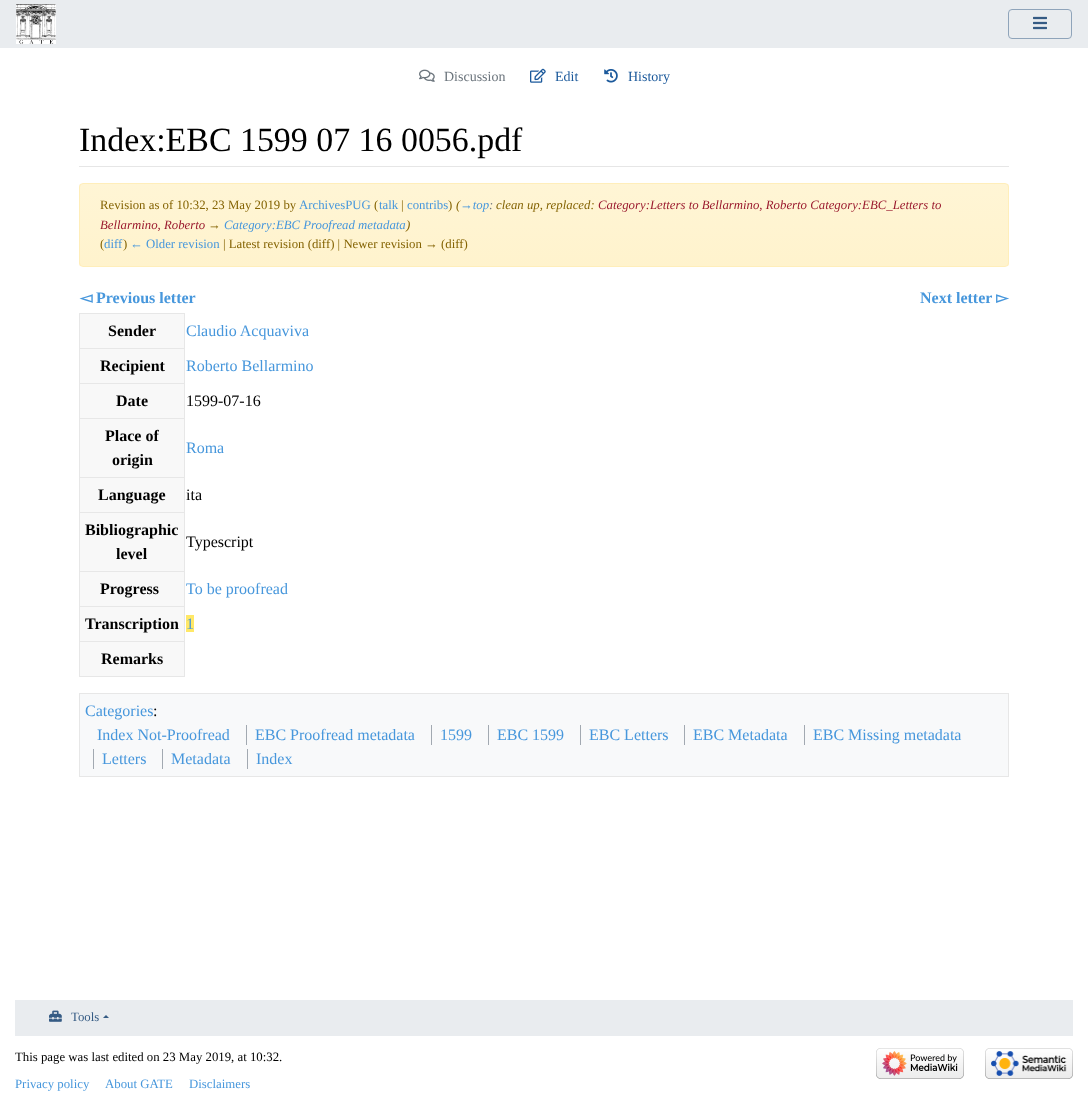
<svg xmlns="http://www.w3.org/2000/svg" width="1088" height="1106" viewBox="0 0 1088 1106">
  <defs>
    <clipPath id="clip1"><rect x="79" y="183" width="930" height="84" rx="4"/></clipPath>
    <linearGradient id="g1" gradientUnits="userSpaceOnUse" x1="544" y1="184" x2="544" y2="266"><stop offset="0" stop-color="#fff5d5"/><stop offset="1" stop-color="#fff3cd"/></linearGradient>
  </defs>
  <rect width="100%" height="100%" fill="#ffffff"/>
  <rect x="0" y="0" width="1088" height="48" fill="#e9ecef"/>
  <image x="16" y="4" width="40" height="40" href="img1.png"/>
  <rect x="1008.5" y="9.5" width="63" height="29" rx="3.5" fill="none" stroke="#8fa4ba"/>
  <image x="1033" y="16" width="14" height="14" href="img2.png"/>
  <image x="419" y="69" width="16" height="13" href="img3.png"/>
  <text x="444" y="81" font-family="Liberation Serif" font-size="14" fill="#6c757d">Discussion</text>
  <image x="530" y="68" width="16" height="15" href="img4.png"/>
  <text x="555" y="81" font-family="Liberation Serif" font-size="14" fill="#1b599b">Edit</text>
  <image x="604" y="69" width="14" height="14" href="img5.png"/>
  <text x="628" y="81" font-family="Liberation Serif" font-size="14" fill="#1b599b">History</text>
  <rect x="79" y="166" width="930" height="1" fill="#e6e6e6"/>
  <text x="79" y="151" font-family="Liberation Serif" font-size="33.9" fill="#000000">Index:EBC 1599 07 16 0056.pdf</text>
  <g clip-path="url(#clip1)">
    <rect x="79" y="184" width="930" height="82" fill="url(#g1)"/>
  </g>
  <rect x="79.5" y="183.5" width="929" height="83" rx="3.5" fill="none" stroke="#ffeeba"/>
  <text x="100" y="209" font-family="Liberation Serif" font-size="12.8" fill="#856404">Revision as of 10:32, 23 May 2019 by</text>
  <text x="299" y="209" font-family="Liberation Serif" font-size="12.8" fill="#4797dc">ArchivesPUG</text>
  <text x="374" y="209" font-family="Liberation Serif" font-size="12.8" fill="#856404">(</text>
  <text x="379" y="209" font-family="Liberation Serif" font-size="12.8" fill="#4797dc">talk</text>
  <text x="401" y="209" font-family="Liberation Serif" font-size="12.8" fill="#856404">|</text>
  <text x="407" y="209" font-family="Liberation Serif" font-size="12.8" fill="#4797dc">contribs</text>
  <text x="448" y="209" font-family="Liberation Serif" font-size="12.8" fill="#856404">)</text>
  <text x="456" y="209" font-family="Liberation Serif" font-size="12.8" font-style="italic" fill="#856404">(</text>
  <text x="460" y="209" font-family="Liberation Serif" font-size="12.8" font-style="italic" fill="#4797dc">→top</text>
  <text x="489" y="209" font-family="Liberation Serif" font-size="12.8" font-style="italic" fill="#72777d">:</text>
  <text x="496" y="209" font-family="Liberation Serif" font-size="12.8" font-style="italic" fill="#856404">clean up, replaced:</text>
  <text x="598" y="209" font-family="Liberation Serif" font-size="12.8" font-style="italic" fill="#9b1b2f">Category:Letters to Bellarmino, Roberto Category:EBC_Letters to</text>
  <text x="100" y="229" font-family="Liberation Serif" font-size="12.8" font-style="italic" fill="#9b1b2f">Bellarmino, Roberto</text>
  <text x="208" y="229" font-family="Liberation Serif" font-size="12.8" font-style="italic" fill="#856404">→</text>
  <text x="224" y="229" font-family="Liberation Serif" font-size="12.8" font-style="italic" fill="#4797dc">Category:EBC Proofread metadata</text>
  <text x="406" y="229" font-family="Liberation Serif" font-size="12.8" font-style="italic" fill="#856404">)</text>
  <text x="100" y="248" font-family="Liberation Serif" font-size="12.8" fill="#856404">(</text>
  <text x="104" y="248" font-family="Liberation Serif" font-size="12.8" fill="#4797dc">diff</text>
  <text x="123" y="248" font-family="Liberation Serif" font-size="12.8" fill="#856404">)</text>
  <text x="130" y="248" font-family="Liberation Serif" font-size="12.8" fill="#4797dc">← Older revision</text>
  <text x="223" y="248" font-family="Liberation Serif" font-size="12.8" fill="#856404">| Latest revision (diff) | Newer revision → (diff)</text>
  <text x="80" y="303" font-family="DejaVu Sans" font-size="16" font-weight="bold" fill="#4797dc">◅</text>
  <text x="96" y="303" font-family="Liberation Serif" font-size="16" font-weight="bold" fill="#4797dc">Previous letter</text>
  <text x="920" y="303" font-family="Liberation Serif" font-size="16" font-weight="bold" fill="#4797dc">Next letter</text>
  <text x="996" y="303" font-family="DejaVu Sans" font-size="16" font-weight="bold" fill="#4797dc">▻</text>
  <rect x="80" y="314" width="104" height="34" fill="#f8f8f8"/>
  <rect x="79" y="313" width="106" height="1" fill="#e7e7e7"/>
  <rect x="79" y="348" width="106" height="1" fill="#e7e7e7"/>
  <rect x="79" y="383" width="106" height="1" fill="#e7e7e7"/>
  <rect x="79" y="418" width="106" height="1" fill="#e7e7e7"/>
  <rect x="79" y="477" width="106" height="1" fill="#e7e7e7"/>
  <rect x="79" y="512" width="106" height="1" fill="#e7e7e7"/>
  <rect x="79" y="571" width="106" height="1" fill="#e7e7e7"/>
  <rect x="79" y="606" width="106" height="1" fill="#e7e7e7"/>
  <rect x="79" y="641" width="106" height="1" fill="#e7e7e7"/>
  <rect x="184" y="641" width="1" height="36" fill="#e7e7e7"/>
  <rect x="184" y="606" width="1" height="36" fill="#e7e7e7"/>
  <rect x="184" y="571" width="1" height="36" fill="#e7e7e7"/>
  <rect x="184" y="512" width="1" height="60" fill="#e7e7e7"/>
  <rect x="184" y="477" width="1" height="36" fill="#e7e7e7"/>
  <rect x="184" y="418" width="1" height="60" fill="#e7e7e7"/>
  <rect x="184" y="383" width="1" height="36" fill="#e7e7e7"/>
  <rect x="184" y="348" width="1" height="36" fill="#e7e7e7"/>
  <rect x="184" y="313" width="1" height="36" fill="#e7e7e7"/>
  <rect x="79" y="676" width="106" height="1" fill="#e7e7e7"/>
  <rect x="79" y="641" width="1" height="36" fill="#e7e7e7"/>
  <rect x="79" y="606" width="1" height="36" fill="#e7e7e7"/>
  <rect x="79" y="571" width="1" height="36" fill="#e7e7e7"/>
  <rect x="79" y="512" width="1" height="60" fill="#e7e7e7"/>
  <rect x="79" y="477" width="1" height="36" fill="#e7e7e7"/>
  <rect x="79" y="418" width="1" height="60" fill="#e7e7e7"/>
  <rect x="79" y="383" width="1" height="36" fill="#e7e7e7"/>
  <rect x="79" y="348" width="1" height="36" fill="#e7e7e7"/>
  <rect x="79" y="313" width="1" height="36" fill="#e7e7e7"/>
  <text x="108" y="336" font-family="Liberation Serif" font-size="16" font-weight="bold" fill="#000000">Sender</text>
  <text x="186" y="336" font-family="Liberation Serif" font-size="16" fill="#4797dc">Claudio Acquaviva</text>
  <rect x="80" y="349" width="104" height="34" fill="#f8f8f8"/>
  <text x="100" y="371" font-family="Liberation Serif" font-size="16" font-weight="bold" fill="#000000">Recipient</text>
  <text x="186" y="371" font-family="Liberation Serif" font-size="16" fill="#4797dc">Roberto Bellarmino</text>
  <rect x="80" y="384" width="104" height="34" fill="#f8f8f8"/>
  <text x="116" y="406" font-family="Liberation Serif" font-size="16" font-weight="bold" fill="#000000">Date</text>
  <text x="186" y="406" font-family="Liberation Serif" font-size="16" fill="#000000">1599-07-16</text>
  <rect x="80" y="419" width="104" height="58" fill="#f8f8f8"/>
  <text x="105" y="441" font-family="Liberation Serif" font-size="16" font-weight="bold" fill="#000000">Place of</text>
  <text x="112" y="465" font-family="Liberation Serif" font-size="16" font-weight="bold" fill="#000000">origin</text>
  <text x="186" y="453" font-family="Liberation Serif" font-size="16" fill="#4797dc">Roma</text>
  <rect x="80" y="478" width="104" height="34" fill="#f8f8f8"/>
  <text x="98" y="500" font-family="Liberation Serif" font-size="16" font-weight="bold" fill="#000000">Language</text>
  <text x="186" y="500" font-family="Liberation Serif" font-size="16" fill="#000000">ita</text>
  <rect x="80" y="513" width="104" height="58" fill="#f8f8f8"/>
  <text x="85" y="535" font-family="Liberation Serif" font-size="16" font-weight="bold" fill="#000000">Bibliographic</text>
  <text x="116" y="559" font-family="Liberation Serif" font-size="16" font-weight="bold" fill="#000000">level</text>
  <text x="186" y="547" font-family="Liberation Serif" font-size="16" fill="#000000">Typescript</text>
  <rect x="80" y="572" width="104" height="34" fill="#f8f8f8"/>
  <text x="100" y="594" font-family="Liberation Serif" font-size="16" font-weight="bold" fill="#000000">Progress</text>
  <text x="186" y="594" font-family="Liberation Serif" font-size="16" fill="#4797dc">To be proofread</text>
  <rect x="80" y="607" width="104" height="34" fill="#f8f8f8"/>
  <text x="85" y="629" font-family="Liberation Serif" font-size="16" font-weight="bold" fill="#000000">Transcription</text>
  <rect x="186" y="615" width="8" height="17" fill="#ffe867"/>
  <text x="186" y="629" font-family="Liberation Serif" font-size="16" fill="#4797dc">1</text>
  <rect x="80" y="642" width="104" height="34" fill="#f8f8f8"/>
  <text x="101" y="664" font-family="Liberation Serif" font-size="16" font-weight="bold" fill="#000000">Remarks</text>
  <rect x="79.5" y="693.5" width="929" height="83" fill="#f8f9fa" stroke="#e7e7e7"/>
  <text x="85" y="716" font-family="Liberation Serif" font-size="16" fill="#4797dc">Categories</text>
  <text x="153" y="716" font-family="Liberation Serif" font-size="16" fill="#000000">:</text>
  <text x="97" y="740" font-family="Liberation Serif" font-size="16" fill="#4797dc">Index Not-Proofread</text>
  <rect x="246" y="725" width="1" height="20" fill="#a2a9b1"/>
  <text x="255" y="740" font-family="Liberation Serif" font-size="16" fill="#4797dc">EBC Proofread metadata</text>
  <rect x="431" y="725" width="1" height="20" fill="#a2a9b1"/>
  <text x="440" y="740" font-family="Liberation Serif" font-size="16" fill="#4797dc">1599</text>
  <rect x="488" y="725" width="1" height="20" fill="#a2a9b1"/>
  <text x="497" y="740" font-family="Liberation Serif" font-size="16" fill="#4797dc">EBC 1599</text>
  <rect x="580" y="725" width="1" height="20" fill="#a2a9b1"/>
  <text x="589" y="740" font-family="Liberation Serif" font-size="16" fill="#4797dc">EBC Letters</text>
  <rect x="684" y="725" width="1" height="20" fill="#a2a9b1"/>
  <text x="693" y="740" font-family="Liberation Serif" font-size="16" fill="#4797dc">EBC Metadata</text>
  <rect x="804" y="725" width="1" height="20" fill="#a2a9b1"/>
  <text x="813" y="740" font-family="Liberation Serif" font-size="16" fill="#4797dc">EBC Missing metadata</text>
  <rect x="93" y="749" width="1" height="20" fill="#a2a9b1"/>
  <text x="102" y="764" font-family="Liberation Serif" font-size="16" fill="#4797dc">Letters</text>
  <rect x="162" y="749" width="1" height="20" fill="#a2a9b1"/>
  <text x="171" y="764" font-family="Liberation Serif" font-size="16" fill="#4797dc">Metadata</text>
  <rect x="247" y="749" width="1" height="20" fill="#a2a9b1"/>
  <text x="256" y="764" font-family="Liberation Serif" font-size="16" fill="#4797dc">Index</text>
  <rect x="15" y="1000" width="1058" height="36" fill="#e9ecef"/>
  <image x="49" y="1010" width="13" height="12" href="img6.png"/>
  <text x="71" y="1021" font-family="Liberation Serif" font-size="12.8" fill="#355b84">Tools</text>
  <path d="M109 1018H103L106 1015Z" fill="#355b84"/>
  <text x="15" y="1061" font-family="Liberation Serif" font-size="12.8" fill="#000000">This page was last edited on 23 May 2019, at 10:32.</text>
  <text x="15" y="1088" font-family="Liberation Serif" font-size="12.8" fill="#4797dc">Privacy policy</text>
  <text x="105" y="1088" font-family="Liberation Serif" font-size="12.8" fill="#4797dc">About GATE</text>
  <text x="189" y="1088" font-family="Liberation Serif" font-size="12.8" fill="#4797dc">Disclaimers</text>
  <image x="876" y="1048" width="88" height="31" href="img7.png"/>
  <image x="985" y="1048" width="88" height="31" href="img8.png"/>
</svg>
